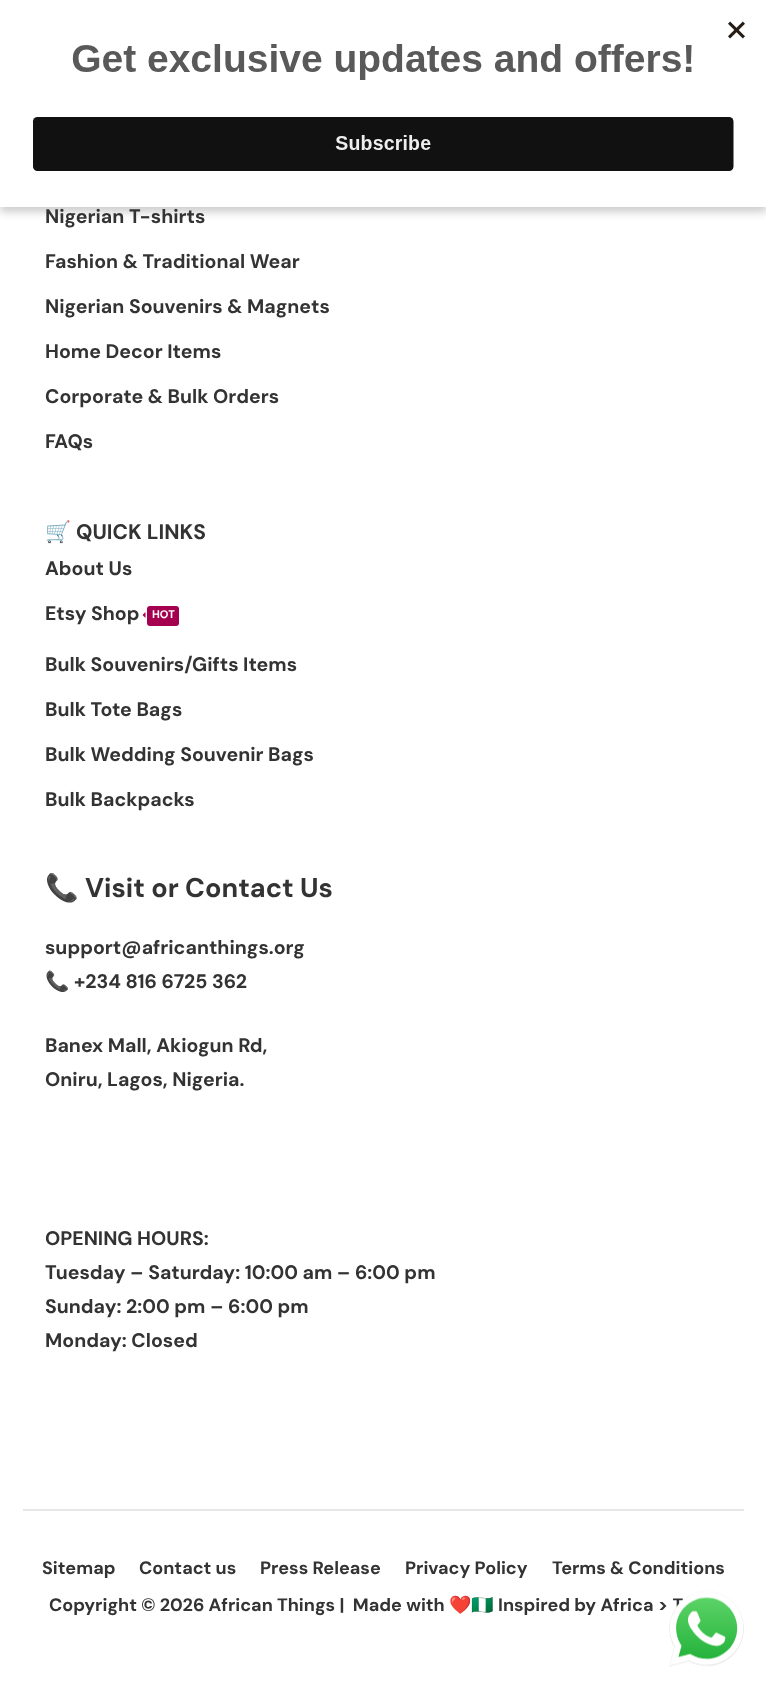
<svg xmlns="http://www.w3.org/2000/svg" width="766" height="1688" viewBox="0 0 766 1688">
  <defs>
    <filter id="blur1" x="-50%" y="-200%" width="200%" height="500%"><feGaussianBlur stdDeviation="4.5"/></filter>
  </defs>
  <rect width="100%" height="100%" fill="#ffffff"/>
  <rect x="0" y="5" width="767" height="207" fill="#000000" fill-opacity="0.2" filter="url(#blur1)"/>
  <rect x="0" y="0" width="766" height="207" fill="#ffffff"/>
  <image x="32" y="21" width="713" height="150" href="img1.png"/>
  <rect x="23" y="1509" width="721" height="2" fill="#e6e6e6"/>
  <text x="45" y="223" font-family="DM Sans" font-size="19.5" font-weight="bold" fill="#333333">Nigerian T-shirts</text>
  <text x="45" y="268" font-family="DM Sans" font-size="19.5" font-weight="bold" fill="#333333">Fashion &amp; Traditional Wear</text>
  <text x="45" y="313" font-family="DM Sans" font-size="19.5" font-weight="bold" fill="#333333">Nigerian Souvenirs &amp; Magnets</text>
  <text x="45" y="358" font-family="DM Sans" font-size="19.5" font-weight="bold" fill="#333333">Home Decor Items</text>
  <text x="45" y="403" font-family="DM Sans" font-size="19.5" font-weight="bold" fill="#333333">Corporate &amp; Bulk Orders</text>
  <text x="45" y="448" font-family="DM Sans" font-size="19.5" font-weight="bold" fill="#333333">FAQs</text>
  <text x="45" y="539" font-family="Noto Color Emoji" font-size="21" font-weight="bold" fill="#333333">🛒</text>
  <text x="76" y="539" font-family="DM Sans" font-size="21" font-weight="bold" fill="#333333">QUICK LINKS</text>
  <text x="45" y="575" font-family="DM Sans" font-size="19.5" font-weight="bold" fill="#333333">About Us</text>
  <text x="45" y="620" font-family="DM Sans" font-size="19.5" font-weight="bold" fill="#333333">Etsy Shop</text>
  <rect x="147" y="606" width="32" height="20" rx="3" fill="#a4004f"/>
  <path d="M145.5 612V618L142.5 615Z" fill="#a4004f"/>
  <text x="152" y="618" font-family="DM Sans" font-size="11" font-weight="bold" fill="#ffffff">HOT</text>
  <text x="45" y="671" font-family="DM Sans" font-size="19.5" font-weight="bold" fill="#333333">Bulk Souvenirs/Gifts Items</text>
  <text x="45" y="716" font-family="DM Sans" font-size="19.5" font-weight="bold" fill="#333333">Bulk Tote Bags</text>
  <text x="45" y="761" font-family="DM Sans" font-size="19.5" font-weight="bold" fill="#333333">Bulk Wedding Souvenir Bags</text>
  <text x="45" y="806" font-family="DM Sans" font-size="19.5" font-weight="bold" fill="#333333">Bulk Backpacks</text>
  <text x="45" y="897" font-family="Noto Color Emoji" font-size="27" font-weight="bold" fill="#333333">📞</text>
  <text x="85" y="897" font-family="DM Sans" font-size="27" font-weight="bold" fill="#333333">Visit or Contact Us</text>
  <text x="45" y="954" font-family="DM Sans" font-size="19.5" font-weight="bold" fill="#333333">support@africanthings.org</text>
  <text x="45" y="988" font-family="Noto Color Emoji" font-size="19.5" font-weight="bold" fill="#333333">📞</text>
  <text x="74" y="988" font-family="DM Sans" font-size="19.5" font-weight="bold" fill="#333333">+234 816 6725 362</text>
  <text x="45" y="1052" font-family="DM Sans" font-size="19.5" font-weight="bold" fill="#333333">Banex Mall, Akiogun Rd,</text>
  <text x="45" y="1086" font-family="DM Sans" font-size="19.5" font-weight="bold" fill="#333333">Oniru, Lagos, Nigeria.</text>
  <text x="45" y="1245" font-family="DM Sans" font-size="19.5" font-weight="bold" fill="#333333">OPENING HOURS:</text>
  <text x="45" y="1279" font-family="DM Sans" font-size="19.5" font-weight="bold" fill="#333333">Tuesday – Saturday: 10:00 am – 6:00 pm</text>
  <text x="45" y="1313" font-family="DM Sans" font-size="19.5" font-weight="bold" fill="#333333">Sunday: 2:00 pm – 6:00 pm</text>
  <text x="45" y="1347" font-family="DM Sans" font-size="19.5" font-weight="bold" fill="#333333">Monday: Closed</text>
  <text x="42" y="1574" font-family="DM Sans" font-size="18" font-weight="bold" fill="#333333">Sitemap</text>
  <text x="139" y="1574" font-family="DM Sans" font-size="18" font-weight="bold" fill="#333333">Contact us</text>
  <text x="260" y="1574" font-family="DM Sans" font-size="18" font-weight="bold" fill="#333333">Press Release</text>
  <text x="405" y="1574" font-family="DM Sans" font-size="18" font-weight="bold" fill="#333333">Privacy Policy</text>
  <text x="552" y="1574" font-family="DM Sans" font-size="18" font-weight="bold" fill="#333333">Terms &amp; Conditions</text>
  <text x="49" y="1611" font-family="DM Sans" font-size="18" font-weight="bold" fill="#333333" xml:space="preserve">Copyright © 2026 African Things |  Made with</text>
  <text x="449" y="1611" font-family="Noto Color Emoji" font-size="18" fill="#333333">❤️🇳🇬</text>
  <text x="498" y="1611" font-family="DM Sans" font-size="18" font-weight="bold" fill="#333333">Inspired by Africa &gt; T</text>
  <image x="669" y="1591" width="75" height="76" href="img2.png"/>
</svg>
